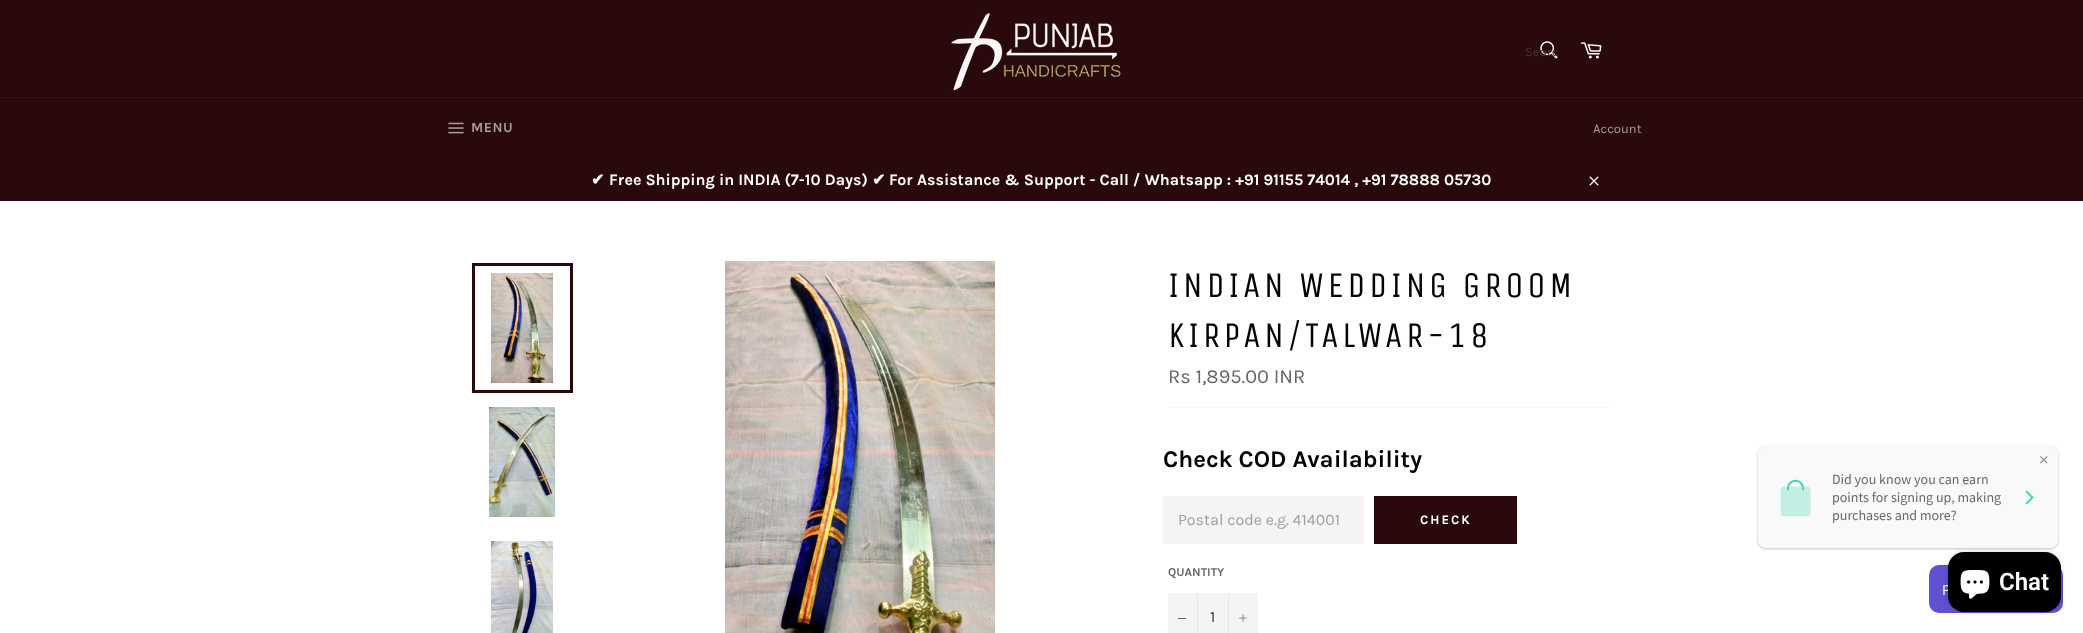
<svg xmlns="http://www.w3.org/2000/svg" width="2083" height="633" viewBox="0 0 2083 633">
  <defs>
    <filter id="blur1" x="-50%" y="-200%" width="200%" height="500%"><feGaussianBlur stdDeviation="2.5"/></filter>
  </defs>
  <rect width="100%" height="100%" fill="#290909"/>
  <image x="951" y="13" width="170" height="78" href="img1.png"/>
  <image x="1540" y="41" width="18" height="18" href="img2.png"/>
  <text x="1525" y="56" font-family="Karla" font-size="13" fill="#4c3131">Searc</text>
  <image x="1580" y="42" width="22" height="17" href="img3.png"/>
  <rect x="0" y="97" width="2083" height="1" fill="#3e0e0e"/>
  <image x="448" y="122" width="16" height="12" href="img4.png"/>
  <text x="471" y="132" font-family="Karla" font-size="14" font-weight="bold" letter-spacing="0.5" fill="#a99d9d">MENU</text>
  <text x="1593" y="133" font-family="Karla" font-size="13" fill="#a99d9d">Account</text>
  <text x="591" y="185" font-family="DejaVu Sans" font-size="16" font-weight="bold" fill="#ffffff">✔</text>
  <text x="609" y="185" font-family="Karla" font-size="16" font-weight="bold" fill="#ffffff">Free Shipping in INDIA (7-10 Days)</text>
  <text x="872" y="185" font-family="DejaVu Sans" font-size="16" font-weight="bold" fill="#ffffff">✔</text>
  <text x="889" y="185" font-family="Karla" font-size="16" font-weight="bold" fill="#ffffff">For Assistance &amp; Support - Call / Whatsapp : +91 91155 74014 , +91 78888 05730</text>
  <image x="1589" y="176" width="10" height="10" href="img5.png"/>
  <rect x="0" y="201" width="2083" height="432" fill="#ffffff"/>
  <image x="491" y="273" width="62" height="110" href="img6.png"/>
  <rect x="473.5" y="264.5" width="98" height="127" fill="none" stroke="#290909" stroke-width="3"/>
  <image x="489" y="407" width="66" height="110" href="img7.png"/>
  <image x="491" y="541" width="62" height="92" href="img8.png"/>
  <image x="725" y="261" width="270" height="372" href="img9.png"/>
  <text x="1168" y="297" font-family="Unica One" font-size="36" letter-spacing="3.6" fill="#030303">INDIAN WEDDING GROOM</text>
  <text x="1168" y="347" font-family="Unica One" font-size="36" letter-spacing="3.6" fill="#030303">KIRPAN/TALWAR-18</text>
  <text x="1168" y="383" font-family="Karla" font-size="20" fill="#666666">Rs 1,895.00 INR</text>
  <rect x="1168" y="407" width="444" height="1" fill="#f7f7f7"/>
  <text x="1163" y="467" font-family="Karla" font-size="24" font-weight="bold" fill="#030303">Check COD Availability</text>
  <rect x="1163" y="496" width="201" height="48" fill="#f4f4f4"/>
  <text x="1178" y="525" font-family="Karla" font-size="16" fill="#9f9f9f">Postal code e.g. 414001</text>
  <rect x="1374" y="496" width="143" height="48" fill="#290909"/>
  <text x="1420" y="524" font-family="Karla" font-size="13" font-weight="bold" letter-spacing="2" fill="#ffffff">CHECK</text>
  <text x="1168" y="576" font-family="Karla" font-size="12" font-weight="bold" fill="#666666">QUANTITY</text>
  <rect x="1168" y="593" width="90" height="40" fill="#f4f4f4"/>
  <rect x="1197" y="593" width="1" height="40" fill="#e7e7e7"/>
  <rect x="1178" y="618" width="8" height="1" fill="#666666"/>
  <text x="1210" y="622" font-family="Karla" font-size="16" fill="#333333">1</text>
  <rect x="1228" y="593" width="1" height="40" fill="#e7e7e7"/>
  <image x="1239" y="614" width="8" height="8" href="img10.png"/>
  <image x="1756" y="445" width="304" height="106" href="img11.png"/>
  <image x="1929" y="565" width="134" height="48" href="img12.png"/>
  <rect x="1948" y="552" width="113" height="60" rx="16" fill="#000000" fill-opacity="0.15" filter="url(#blur1)"/>
  <rect x="1948" y="552" width="113" height="60" rx="16" fill="#000000"/>
  <image x="1960" y="570" width="30" height="29" href="img13.png"/>
  <text x="1999" y="590" font-family="Roboto" font-size="24" font-weight="600" fill="#ffffff">Chat</text>
</svg>
